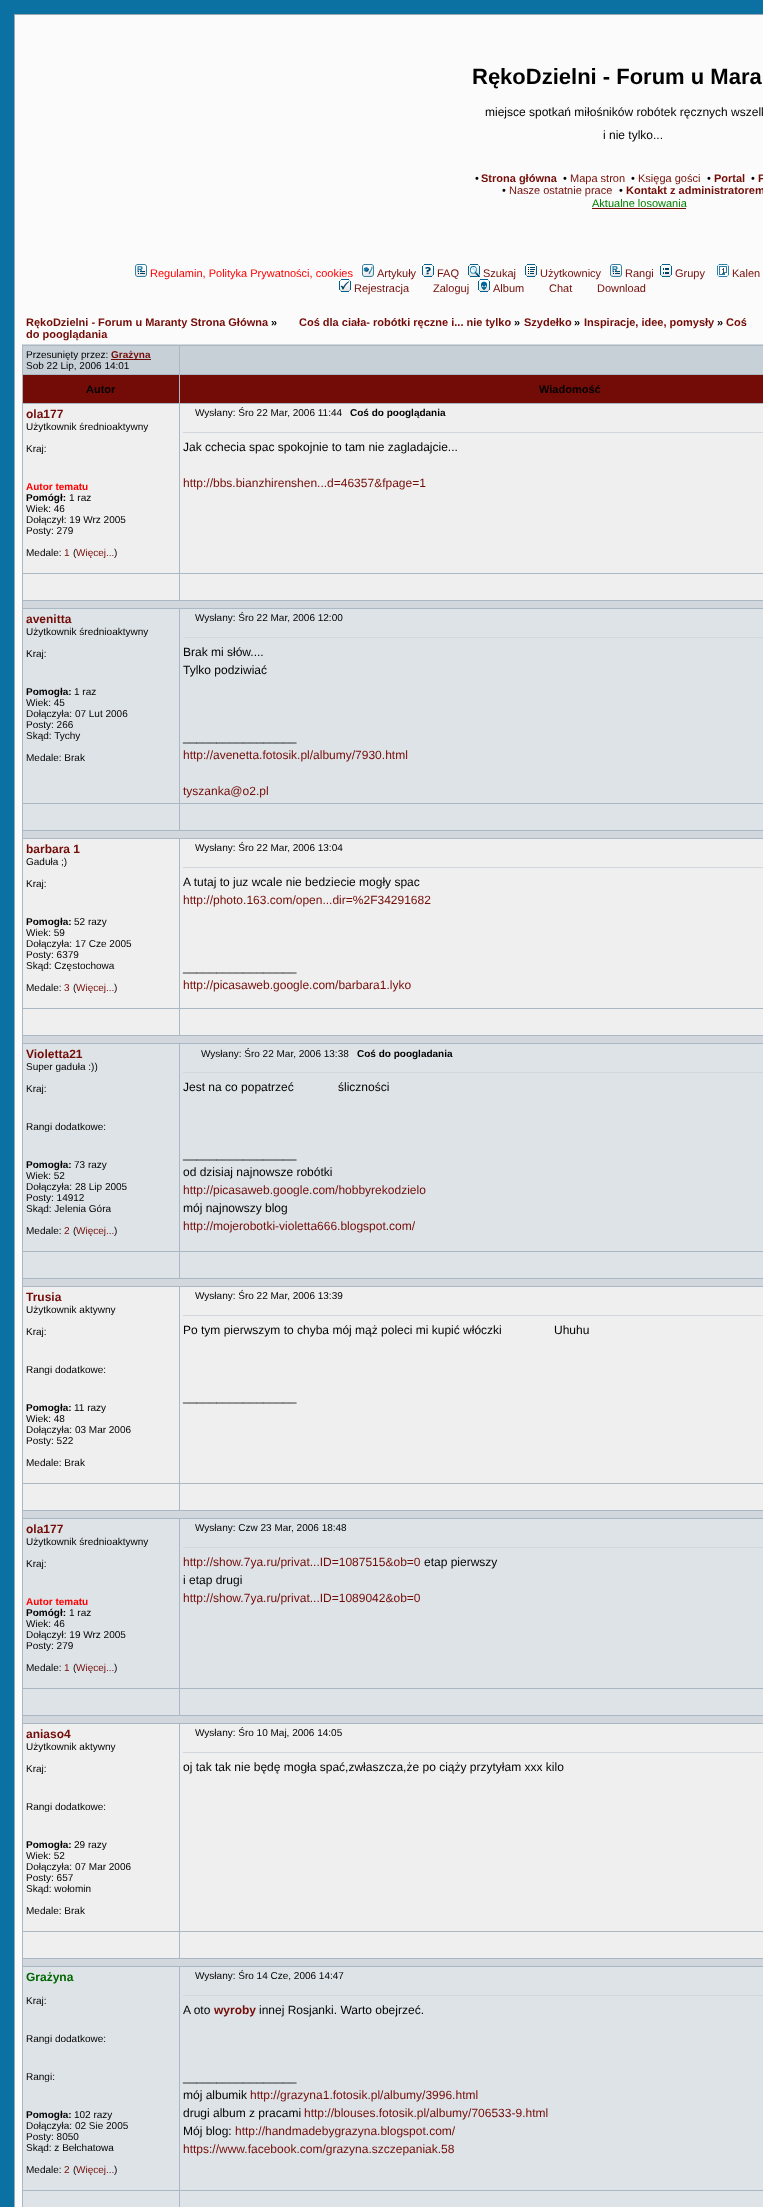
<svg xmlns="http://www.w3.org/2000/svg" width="763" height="2207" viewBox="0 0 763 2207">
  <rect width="100%" height="100%" fill="#0b70a2"/>
  <rect x="14.5" y="14.5" width="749" height="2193" fill="#fbfbfb" stroke="#98aab1"/>
  <text x="472" y="84" font-family="Liberation Sans" font-size="22" font-weight="bold" fill="#000000">RękoDzielni - Forum u Mara</text>
  <text x="485" y="116" font-family="Liberation Sans" font-size="12" fill="#000000">miejsce spotkań miłośników robótek ręcznych wszelk</text>
  <text x="603" y="139" font-family="Liberation Sans" font-size="12" fill="#000000">i nie tylko...</text>
  <text x="475" y="182" font-family="Liberation Sans" font-size="11" fill="#000000">•</text>
  <text x="481" y="182" font-family="Liberation Sans" font-size="11" font-weight="bold" fill="#730c07">Strona główna</text>
  <text x="563" y="182" font-family="Liberation Sans" font-size="11" fill="#000000">•</text>
  <text x="570" y="182" font-family="Liberation Sans" font-size="11" fill="#730c07">Mapa stron</text>
  <text x="631" y="182" font-family="Liberation Sans" font-size="11" fill="#000000">•</text>
  <text x="638" y="182" font-family="Liberation Sans" font-size="11" fill="#730c07">Księga gości</text>
  <text x="707" y="182" font-family="Liberation Sans" font-size="11" fill="#000000">•</text>
  <text x="714" y="182" font-family="Liberation Sans" font-size="11" font-weight="bold" fill="#730c07">Portal</text>
  <text x="751" y="182" font-family="Liberation Sans" font-size="11" fill="#000000">•</text>
  <text x="758" y="182" font-family="Liberation Sans" font-size="11" font-weight="bold" fill="#730c07">F</text>
  <text x="502" y="194" font-family="Liberation Sans" font-size="11" fill="#000000">•</text>
  <text x="509" y="194" font-family="Liberation Sans" font-size="11" fill="#730c07">Nasze ostatnie prace</text>
  <text x="619" y="194" font-family="Liberation Sans" font-size="11" fill="#000000">•</text>
  <text x="626" y="194" font-family="Liberation Sans" font-size="11" font-weight="bold" fill="#730c07">Kontakt z administratorem</text>
  <text x="592" y="207" font-family="Liberation Sans" font-size="11" fill="#008000">Aktualne losowania</text>
  <rect x="592" y="208" width="94" height="1" fill="#730c07"/>
  <image x="135" y="264" width="12" height="13" href="img1.png"/>
  <text x="150" y="277" font-family="Liberation Sans" font-size="11" fill="#ff0000">Regulamin, Polityka Prywatności, cookies</text>
  <image x="362" y="264" width="12" height="13" href="img2.png"/>
  <text x="377" y="277" font-family="Liberation Sans" font-size="11" fill="#730c07">Artykuły</text>
  <image x="422" y="264" width="12" height="13" href="img3.png"/>
  <text x="437" y="277" font-family="Liberation Sans" font-size="11" fill="#730c07">FAQ</text>
  <image x="468" y="264" width="12" height="13" href="img4.png"/>
  <text x="483" y="277" font-family="Liberation Sans" font-size="11" fill="#730c07">Szukaj</text>
  <image x="525" y="264" width="12" height="13" href="img5.png"/>
  <text x="540" y="277" font-family="Liberation Sans" font-size="11" fill="#730c07">Użytkownicy</text>
  <image x="610" y="264" width="12" height="13" href="img1.png"/>
  <text x="625" y="277" font-family="Liberation Sans" font-size="11" fill="#730c07">Rangi</text>
  <image x="660" y="264" width="12" height="13" href="img6.png"/>
  <text x="675" y="277" font-family="Liberation Sans" font-size="11" fill="#730c07">Grupy</text>
  <image x="717" y="264" width="12" height="13" href="img7.png"/>
  <text x="732" y="277" font-family="Liberation Sans" font-size="11" fill="#730c07">Kalen</text>
  <image x="339" y="279" width="12" height="13" href="img8.png"/>
  <text x="354" y="292" font-family="Liberation Sans" font-size="11" fill="#730c07">Rejestracja</text>
  <text x="433" y="292" font-family="Liberation Sans" font-size="11" fill="#730c07">Zaloguj</text>
  <image x="478" y="279" width="12" height="13" href="img9.png"/>
  <text x="493" y="292" font-family="Liberation Sans" font-size="11" fill="#730c07">Album</text>
  <text x="549" y="292" font-family="Liberation Sans" font-size="11" fill="#730c07">Chat</text>
  <text x="597" y="292" font-family="Liberation Sans" font-size="11" fill="#730c07">Download</text>
  <text x="26" y="326" font-family="Liberation Sans" font-size="11" font-weight="bold" fill="#730c07">RękoDzielni - Forum u Maranty Strona Główna</text>
  <text x="271" y="326" font-family="Liberation Sans" font-size="11" font-weight="bold" fill="#000000">»</text>
  <text x="299" y="326" font-family="Liberation Sans" font-size="11" font-weight="bold" fill="#730c07">Coś dla ciała- robótki ręczne i... nie tylko</text>
  <text x="514" y="326" font-family="Liberation Sans" font-size="11" font-weight="bold" fill="#000000">»</text>
  <text x="524" y="326" font-family="Liberation Sans" font-size="11" font-weight="bold" fill="#730c07">Szydełko</text>
  <text x="574" y="326" font-family="Liberation Sans" font-size="11" font-weight="bold" fill="#000000">»</text>
  <text x="584" y="326" font-family="Liberation Sans" font-size="11" font-weight="bold" fill="#730c07">Inspiracje, idee, pomysły</text>
  <text x="717" y="326" font-family="Liberation Sans" font-size="11" font-weight="bold" fill="#000000">»</text>
  <text x="726" y="326" font-family="Liberation Sans" font-size="11" font-weight="bold" fill="#730c07">Coś</text>
  <text x="26" y="338" font-family="Liberation Sans" font-size="11" font-weight="bold" fill="#730c07">do pooglądania</text>
  <rect x="22" y="345" width="741" height="1862" fill="#a9b8c2"/>
  <rect x="22" y="344" width="741" height="1" fill="#d1d7dc"/>
  <rect x="23" y="346" width="156" height="28" fill="#c7d0d7"/>
  <text x="26" y="358" font-family="Liberation Sans" font-size="10" fill="#000000">Przesunięty przez:</text>
  <rect x="111" y="359" width="40" height="1" fill="#730c07"/>
  <text x="111" y="358" font-family="Liberation Sans" font-size="10" font-weight="bold" fill="#730c07">Grażyna</text>
  <text x="26" y="369" font-family="Liberation Sans" font-size="10" fill="#000000">Sob 22 Lip, 2006 14:01</text>
  <rect x="180" y="346" width="583" height="28" fill="#c7d0d7"/>
  <rect x="23" y="375" width="156" height="28" fill="#730c07"/>
  <text x="86" y="393" font-family="Liberation Sans" font-size="11" font-weight="bold" fill="#000000">Autor</text>
  <rect x="180" y="375" width="583" height="28" fill="#730c07"/>
  <text x="539" y="393" font-family="Liberation Sans" font-size="11" font-weight="bold" fill="#000000">Wiadomość</text>
  <rect x="23" y="404" width="156" height="169" fill="#efefef"/>
  <text x="26" y="418" font-family="Liberation Sans" font-size="12" font-weight="bold" fill="#730c07">ola177</text>
  <text x="26" y="430" font-family="Liberation Sans" font-size="10" fill="#000000">Użytkownik średnioaktywny</text>
  <text x="26" y="452" font-family="Liberation Sans" font-size="10" fill="#000000">Kraj:</text>
  <text x="26" y="490" font-family="Liberation Sans" font-size="10" font-weight="bold" fill="#ff0000">Autor tematu</text>
  <text x="26" y="501" font-family="Liberation Sans" font-size="10" font-weight="bold" fill="#000000">Pomógł:</text>
  <text x="69" y="501" font-family="Liberation Sans" font-size="10" fill="#000000">1 raz</text>
  <text x="26" y="512" font-family="Liberation Sans" font-size="10" fill="#000000">Wiek: 46</text>
  <text x="26" y="523" font-family="Liberation Sans" font-size="10" fill="#000000">Dołączył: 19 Wrz 2005</text>
  <text x="26" y="534" font-family="Liberation Sans" font-size="10" fill="#000000">Posty: 279</text>
  <text x="26" y="556" font-family="Liberation Sans" font-size="10" fill="#000000">Medale:</text>
  <text x="64" y="556" font-family="Liberation Sans" font-size="10" fill="#730c07">1</text>
  <text x="73" y="556" font-family="Liberation Sans" font-size="10" fill="#000000">(</text>
  <text x="76" y="556" font-family="Liberation Sans" font-size="10" fill="#730c07">Więcej...</text>
  <text x="114" y="556" font-family="Liberation Sans" font-size="10" fill="#000000">)</text>
  <rect x="180" y="404" width="583" height="169" fill="#efefef"/>
  <text x="195" y="416" font-family="Liberation Sans" font-size="10" fill="#000000">Wysłany: Śro 22 Mar, 2006 11:44</text>
  <text x="350" y="416" font-family="Liberation Sans" font-size="10" font-weight="bold" fill="#000000">Coś do pooglądania</text>
  <rect x="183" y="432" width="580" height="1" fill="#d1d7dc"/>
  <text x="183" y="451" font-family="Liberation Sans" font-size="12" fill="#000000">Jak cchecia spac spokojnie to tam nie zagladajcie...</text>
  <text x="183" y="487" font-family="Liberation Sans" font-size="12" fill="#730c07">http://bbs.bianzhirenshen...d=46357&amp;fpage=1</text>
  <rect x="23" y="574" width="156" height="26" fill="#efefef"/>
  <rect x="180" y="574" width="583" height="26" fill="#efefef"/>
  <rect x="23" y="601" width="740" height="7" fill="#d1d7dc"/>
  <rect x="23" y="609" width="156" height="194" fill="#dee3e7"/>
  <text x="26" y="623" font-family="Liberation Sans" font-size="12" font-weight="bold" fill="#730c07">avenitta</text>
  <text x="26" y="635" font-family="Liberation Sans" font-size="10" fill="#000000">Użytkownik średnioaktywny</text>
  <text x="26" y="657" font-family="Liberation Sans" font-size="10" fill="#000000">Kraj:</text>
  <text x="26" y="695" font-family="Liberation Sans" font-size="10" font-weight="bold" fill="#000000">Pomogła:</text>
  <text x="74" y="695" font-family="Liberation Sans" font-size="10" fill="#000000">1 raz</text>
  <text x="26" y="706" font-family="Liberation Sans" font-size="10" fill="#000000">Wiek: 45</text>
  <text x="26" y="717" font-family="Liberation Sans" font-size="10" fill="#000000">Dołączyła: 07 Lut 2006</text>
  <text x="26" y="728" font-family="Liberation Sans" font-size="10" fill="#000000">Posty: 266</text>
  <text x="26" y="739" font-family="Liberation Sans" font-size="10" fill="#000000">Skąd: Tychy</text>
  <text x="26" y="761" font-family="Liberation Sans" font-size="10" fill="#000000">Medale: Brak</text>
  <rect x="180" y="609" width="583" height="194" fill="#dee3e7"/>
  <text x="195" y="621" font-family="Liberation Sans" font-size="10" fill="#000000">Wysłany: Śro 22 Mar, 2006 12:00</text>
  <rect x="183" y="637" width="580" height="1" fill="#d1d7dc"/>
  <text x="183" y="656" font-family="Liberation Sans" font-size="12" fill="#000000">Brak mi słów....</text>
  <text x="183" y="674" font-family="Liberation Sans" font-size="12" fill="#000000">Tylko podziwiać</text>
  <text x="183" y="741" font-family="Liberation Sans" font-size="12" fill="#000000">_________________</text>
  <text x="183" y="759" font-family="Liberation Sans" font-size="12" fill="#730c07">http://avenetta.fotosik.pl/albumy/7930.html</text>
  <text x="183" y="795" font-family="Liberation Sans" font-size="12" fill="#730c07">tyszanka@o2.pl</text>
  <rect x="23" y="804" width="156" height="26" fill="#dee3e7"/>
  <rect x="180" y="804" width="583" height="26" fill="#dee3e7"/>
  <rect x="23" y="831" width="740" height="7" fill="#d1d7dc"/>
  <rect x="23" y="839" width="156" height="169" fill="#efefef"/>
  <text x="26" y="853" font-family="Liberation Sans" font-size="12" font-weight="bold" fill="#730c07">barbara 1</text>
  <text x="26" y="865" font-family="Liberation Sans" font-size="10" fill="#000000">Gaduła ;)</text>
  <text x="26" y="887" font-family="Liberation Sans" font-size="10" fill="#000000">Kraj:</text>
  <text x="26" y="925" font-family="Liberation Sans" font-size="10" font-weight="bold" fill="#000000">Pomogła:</text>
  <text x="74" y="925" font-family="Liberation Sans" font-size="10" fill="#000000">52 razy</text>
  <text x="26" y="936" font-family="Liberation Sans" font-size="10" fill="#000000">Wiek: 59</text>
  <text x="26" y="947" font-family="Liberation Sans" font-size="10" fill="#000000">Dołączyła: 17 Cze 2005</text>
  <text x="26" y="958" font-family="Liberation Sans" font-size="10" fill="#000000">Posty: 6379</text>
  <text x="26" y="969" font-family="Liberation Sans" font-size="10" fill="#000000">Skąd: Częstochowa</text>
  <text x="26" y="991" font-family="Liberation Sans" font-size="10" fill="#000000">Medale:</text>
  <text x="64" y="991" font-family="Liberation Sans" font-size="10" fill="#730c07">3</text>
  <text x="73" y="991" font-family="Liberation Sans" font-size="10" fill="#000000">(</text>
  <text x="76" y="991" font-family="Liberation Sans" font-size="10" fill="#730c07">Więcej...</text>
  <text x="114" y="991" font-family="Liberation Sans" font-size="10" fill="#000000">)</text>
  <rect x="180" y="839" width="583" height="169" fill="#efefef"/>
  <text x="195" y="851" font-family="Liberation Sans" font-size="10" fill="#000000">Wysłany: Śro 22 Mar, 2006 13:04</text>
  <rect x="183" y="867" width="580" height="1" fill="#d1d7dc"/>
  <text x="183" y="886" font-family="Liberation Sans" font-size="12" fill="#000000">A tutaj to juz wcale nie bedziecie mogły spac</text>
  <text x="183" y="904" font-family="Liberation Sans" font-size="12" fill="#730c07">http://photo.163.com/open...dir=%2F34291682</text>
  <text x="183" y="971" font-family="Liberation Sans" font-size="12" fill="#000000">_________________</text>
  <text x="183" y="989" font-family="Liberation Sans" font-size="12" fill="#730c07">http://picasaweb.google.com/barbara1.lyko</text>
  <rect x="23" y="1009" width="156" height="26" fill="#efefef"/>
  <rect x="180" y="1009" width="583" height="26" fill="#efefef"/>
  <rect x="23" y="1036" width="740" height="7" fill="#d1d7dc"/>
  <rect x="23" y="1044" width="156" height="207" fill="#dee3e7"/>
  <text x="26" y="1058" font-family="Liberation Sans" font-size="12" font-weight="bold" fill="#730c07">Violetta21</text>
  <text x="26" y="1070" font-family="Liberation Sans" font-size="10" fill="#000000">Super gaduła :))</text>
  <text x="26" y="1092" font-family="Liberation Sans" font-size="10" fill="#000000">Kraj:</text>
  <text x="26" y="1130" font-family="Liberation Sans" font-size="10" fill="#000000">Rangi dodatkowe:</text>
  <text x="26" y="1168" font-family="Liberation Sans" font-size="10" font-weight="bold" fill="#000000">Pomogła:</text>
  <text x="74" y="1168" font-family="Liberation Sans" font-size="10" fill="#000000">73 razy</text>
  <text x="26" y="1179" font-family="Liberation Sans" font-size="10" fill="#000000">Wiek: 52</text>
  <text x="26" y="1190" font-family="Liberation Sans" font-size="10" fill="#000000">Dołączyła: 28 Lip 2005</text>
  <text x="26" y="1201" font-family="Liberation Sans" font-size="10" fill="#000000">Posty: 14912</text>
  <text x="26" y="1212" font-family="Liberation Sans" font-size="10" fill="#000000">Skąd: Jelenia Góra</text>
  <text x="26" y="1234" font-family="Liberation Sans" font-size="10" fill="#000000">Medale:</text>
  <text x="64" y="1234" font-family="Liberation Sans" font-size="10" fill="#730c07">2</text>
  <text x="73" y="1234" font-family="Liberation Sans" font-size="10" fill="#000000">(</text>
  <text x="76" y="1234" font-family="Liberation Sans" font-size="10" fill="#730c07">Więcej...</text>
  <text x="114" y="1234" font-family="Liberation Sans" font-size="10" fill="#000000">)</text>
  <rect x="180" y="1044" width="583" height="207" fill="#dee3e7"/>
  <text x="201" y="1057" font-family="Liberation Sans" font-size="10" fill="#000000">Wysłany: Śro 22 Mar, 2006 13:38</text>
  <text x="357" y="1057" font-family="Liberation Sans" font-size="10" font-weight="bold" fill="#000000">Coś do poogladania</text>
  <rect x="183" y="1072" width="580" height="1" fill="#d1d7dc"/>
  <text x="183" y="1091" font-family="Liberation Sans" font-size="12" fill="#000000">Jest na co popatrzeć</text>
  <text x="338" y="1091" font-family="Liberation Sans" font-size="12" fill="#000000">śliczności</text>
  <text x="183" y="1158" font-family="Liberation Sans" font-size="12" fill="#000000">_________________</text>
  <text x="183" y="1176" font-family="Liberation Sans" font-size="12" fill="#000000">od dzisiaj najnowsze robótki</text>
  <text x="183" y="1194" font-family="Liberation Sans" font-size="12" fill="#730c07">http://picasaweb.google.com/hobbyrekodzielo</text>
  <text x="183" y="1212" font-family="Liberation Sans" font-size="12" fill="#000000">mój najnowszy blog</text>
  <text x="183" y="1230" font-family="Liberation Sans" font-size="12" fill="#730c07">http://mojerobotki-violetta666.blogspot.com/</text>
  <rect x="23" y="1252" width="156" height="26" fill="#dee3e7"/>
  <rect x="180" y="1252" width="583" height="26" fill="#dee3e7"/>
  <rect x="23" y="1279" width="740" height="7" fill="#d1d7dc"/>
  <rect x="23" y="1287" width="156" height="196" fill="#efefef"/>
  <text x="26" y="1301" font-family="Liberation Sans" font-size="12" font-weight="bold" fill="#730c07">Trusia</text>
  <text x="26" y="1313" font-family="Liberation Sans" font-size="10" fill="#000000">Użytkownik aktywny</text>
  <text x="26" y="1335" font-family="Liberation Sans" font-size="10" fill="#000000">Kraj:</text>
  <text x="26" y="1373" font-family="Liberation Sans" font-size="10" fill="#000000">Rangi dodatkowe:</text>
  <text x="26" y="1411" font-family="Liberation Sans" font-size="10" font-weight="bold" fill="#000000">Pomogła:</text>
  <text x="74" y="1411" font-family="Liberation Sans" font-size="10" fill="#000000">11 razy</text>
  <text x="26" y="1422" font-family="Liberation Sans" font-size="10" fill="#000000">Wiek: 48</text>
  <text x="26" y="1433" font-family="Liberation Sans" font-size="10" fill="#000000">Dołączyła: 03 Mar 2006</text>
  <text x="26" y="1444" font-family="Liberation Sans" font-size="10" fill="#000000">Posty: 522</text>
  <text x="26" y="1466" font-family="Liberation Sans" font-size="10" fill="#000000">Medale: Brak</text>
  <rect x="180" y="1287" width="583" height="196" fill="#efefef"/>
  <text x="195" y="1299" font-family="Liberation Sans" font-size="10" fill="#000000">Wysłany: Śro 22 Mar, 2006 13:39</text>
  <rect x="183" y="1315" width="580" height="1" fill="#d1d7dc"/>
  <text x="183" y="1334" font-family="Liberation Sans" font-size="12" fill="#000000">Po tym pierwszym to chyba mój mąż poleci mi kupić włóczki</text>
  <text x="554" y="1334" font-family="Liberation Sans" font-size="12" fill="#000000">Uhuhu</text>
  <text x="183" y="1401" font-family="Liberation Sans" font-size="12" fill="#000000">_________________</text>
  <rect x="23" y="1484" width="156" height="26" fill="#efefef"/>
  <rect x="180" y="1484" width="583" height="26" fill="#efefef"/>
  <rect x="23" y="1511" width="740" height="7" fill="#d1d7dc"/>
  <rect x="23" y="1519" width="156" height="169" fill="#dee3e7"/>
  <text x="26" y="1533" font-family="Liberation Sans" font-size="12" font-weight="bold" fill="#730c07">ola177</text>
  <text x="26" y="1545" font-family="Liberation Sans" font-size="10" fill="#000000">Użytkownik średnioaktywny</text>
  <text x="26" y="1567" font-family="Liberation Sans" font-size="10" fill="#000000">Kraj:</text>
  <text x="26" y="1605" font-family="Liberation Sans" font-size="10" font-weight="bold" fill="#ff0000">Autor tematu</text>
  <text x="26" y="1616" font-family="Liberation Sans" font-size="10" font-weight="bold" fill="#000000">Pomógł:</text>
  <text x="69" y="1616" font-family="Liberation Sans" font-size="10" fill="#000000">1 raz</text>
  <text x="26" y="1627" font-family="Liberation Sans" font-size="10" fill="#000000">Wiek: 46</text>
  <text x="26" y="1638" font-family="Liberation Sans" font-size="10" fill="#000000">Dołączył: 19 Wrz 2005</text>
  <text x="26" y="1649" font-family="Liberation Sans" font-size="10" fill="#000000">Posty: 279</text>
  <text x="26" y="1671" font-family="Liberation Sans" font-size="10" fill="#000000">Medale:</text>
  <text x="64" y="1671" font-family="Liberation Sans" font-size="10" fill="#730c07">1</text>
  <text x="73" y="1671" font-family="Liberation Sans" font-size="10" fill="#000000">(</text>
  <text x="76" y="1671" font-family="Liberation Sans" font-size="10" fill="#730c07">Więcej...</text>
  <text x="114" y="1671" font-family="Liberation Sans" font-size="10" fill="#000000">)</text>
  <rect x="180" y="1519" width="583" height="169" fill="#dee3e7"/>
  <text x="195" y="1531" font-family="Liberation Sans" font-size="10" fill="#000000">Wysłany: Czw 23 Mar, 2006 18:48</text>
  <rect x="183" y="1547" width="580" height="1" fill="#d1d7dc"/>
  <text x="183" y="1566" font-family="Liberation Sans" font-size="12" fill="#730c07">http://show.7ya.ru/privat...ID=1087515&amp;ob=0</text>
  <text x="424" y="1566" font-family="Liberation Sans" font-size="12" fill="#000000">etap pierwszy</text>
  <text x="183" y="1584" font-family="Liberation Sans" font-size="12" fill="#000000">i etap drugi</text>
  <text x="183" y="1602" font-family="Liberation Sans" font-size="12" fill="#730c07">http://show.7ya.ru/privat...ID=1089042&amp;ob=0</text>
  <rect x="23" y="1689" width="156" height="26" fill="#dee3e7"/>
  <rect x="180" y="1689" width="583" height="26" fill="#dee3e7"/>
  <rect x="23" y="1716" width="740" height="7" fill="#d1d7dc"/>
  <rect x="23" y="1724" width="156" height="207" fill="#efefef"/>
  <text x="26" y="1738" font-family="Liberation Sans" font-size="12" font-weight="bold" fill="#730c07">aniaso4</text>
  <text x="26" y="1750" font-family="Liberation Sans" font-size="10" fill="#000000">Użytkownik aktywny</text>
  <text x="26" y="1772" font-family="Liberation Sans" font-size="10" fill="#000000">Kraj:</text>
  <text x="26" y="1810" font-family="Liberation Sans" font-size="10" fill="#000000">Rangi dodatkowe:</text>
  <text x="26" y="1848" font-family="Liberation Sans" font-size="10" font-weight="bold" fill="#000000">Pomogła:</text>
  <text x="74" y="1848" font-family="Liberation Sans" font-size="10" fill="#000000">29 razy</text>
  <text x="26" y="1859" font-family="Liberation Sans" font-size="10" fill="#000000">Wiek: 52</text>
  <text x="26" y="1870" font-family="Liberation Sans" font-size="10" fill="#000000">Dołączyła: 07 Mar 2006</text>
  <text x="26" y="1881" font-family="Liberation Sans" font-size="10" fill="#000000">Posty: 657</text>
  <text x="26" y="1892" font-family="Liberation Sans" font-size="10" fill="#000000">Skąd: wołomin</text>
  <text x="26" y="1914" font-family="Liberation Sans" font-size="10" fill="#000000">Medale: Brak</text>
  <rect x="180" y="1724" width="583" height="207" fill="#efefef"/>
  <text x="195" y="1736" font-family="Liberation Sans" font-size="10" fill="#000000">Wysłany: Śro 10 Maj, 2006 14:05</text>
  <rect x="183" y="1752" width="580" height="1" fill="#d1d7dc"/>
  <text x="183" y="1771" font-family="Liberation Sans" font-size="12" fill="#000000">oj tak tak nie będę mogła spać,zwłaszcza,że po ciąży przytyłam xxx kilo</text>
  <rect x="23" y="1932" width="156" height="26" fill="#efefef"/>
  <rect x="180" y="1932" width="583" height="26" fill="#efefef"/>
  <rect x="23" y="1959" width="740" height="7" fill="#d1d7dc"/>
  <rect x="23" y="1967" width="156" height="223" fill="#dee3e7"/>
  <text x="26" y="1981" font-family="Liberation Sans" font-size="12" font-weight="bold" fill="#006600">Grażyna</text>
  <text x="26" y="2004" font-family="Liberation Sans" font-size="10" fill="#000000">Kraj:</text>
  <text x="26" y="2042" font-family="Liberation Sans" font-size="10" fill="#000000">Rangi dodatkowe:</text>
  <text x="26" y="2080" font-family="Liberation Sans" font-size="10" fill="#000000">Rangi:</text>
  <text x="26" y="2118" font-family="Liberation Sans" font-size="10" font-weight="bold" fill="#000000">Pomogła:</text>
  <text x="74" y="2118" font-family="Liberation Sans" font-size="10" fill="#000000">102 razy</text>
  <text x="26" y="2129" font-family="Liberation Sans" font-size="10" fill="#000000">Dołączyła: 02 Sie 2005</text>
  <text x="26" y="2140" font-family="Liberation Sans" font-size="10" fill="#000000">Posty: 8050</text>
  <text x="26" y="2151" font-family="Liberation Sans" font-size="10" fill="#000000">Skąd: z Bełchatowa</text>
  <text x="26" y="2173" font-family="Liberation Sans" font-size="10" fill="#000000">Medale:</text>
  <text x="64" y="2173" font-family="Liberation Sans" font-size="10" fill="#730c07">2</text>
  <text x="73" y="2173" font-family="Liberation Sans" font-size="10" fill="#000000">(</text>
  <text x="76" y="2173" font-family="Liberation Sans" font-size="10" fill="#730c07">Więcej...</text>
  <text x="114" y="2173" font-family="Liberation Sans" font-size="10" fill="#000000">)</text>
  <rect x="180" y="1967" width="583" height="223" fill="#dee3e7"/>
  <text x="195" y="1979" font-family="Liberation Sans" font-size="10" fill="#000000">Wysłany: Śro 14 Cze, 2006 14:47</text>
  <rect x="183" y="1995" width="580" height="1" fill="#d1d7dc"/>
  <text x="183" y="2014" font-family="Liberation Sans" font-size="12" fill="#000000">A oto</text>
  <text x="214" y="2014" font-family="Liberation Sans" font-size="12" font-weight="bold" fill="#730c07">wyroby</text>
  <text x="259" y="2014" font-family="Liberation Sans" font-size="12" fill="#000000">innej Rosjanki. Warto obejrzeć.</text>
  <text x="183" y="2081" font-family="Liberation Sans" font-size="12" fill="#000000">_________________</text>
  <text x="183" y="2099" font-family="Liberation Sans" font-size="12" fill="#000000">mój albumik</text>
  <text x="250" y="2099" font-family="Liberation Sans" font-size="12" fill="#730c07">http://grazyna1.fotosik.pl/albumy/3996.html</text>
  <text x="183" y="2117" font-family="Liberation Sans" font-size="12" fill="#000000">drugi album z pracami</text>
  <text x="304" y="2117" font-family="Liberation Sans" font-size="12" fill="#730c07">http://blouses.fotosik.pl/albumy/706533-9.html</text>
  <text x="183" y="2135" font-family="Liberation Sans" font-size="12" fill="#000000">Mój blog:</text>
  <text x="235" y="2135" font-family="Liberation Sans" font-size="12" fill="#730c07">http://handmadebygrazyna.blogspot.com/</text>
  <text x="183" y="2153" font-family="Liberation Sans" font-size="12" fill="#730c07">https://www.facebook.com/grazyna.szczepaniak.58</text>
  <rect x="23" y="2191" width="156" height="16" fill="#dee3e7"/>
  <rect x="180" y="2191" width="583" height="16" fill="#dee3e7"/>
</svg>
